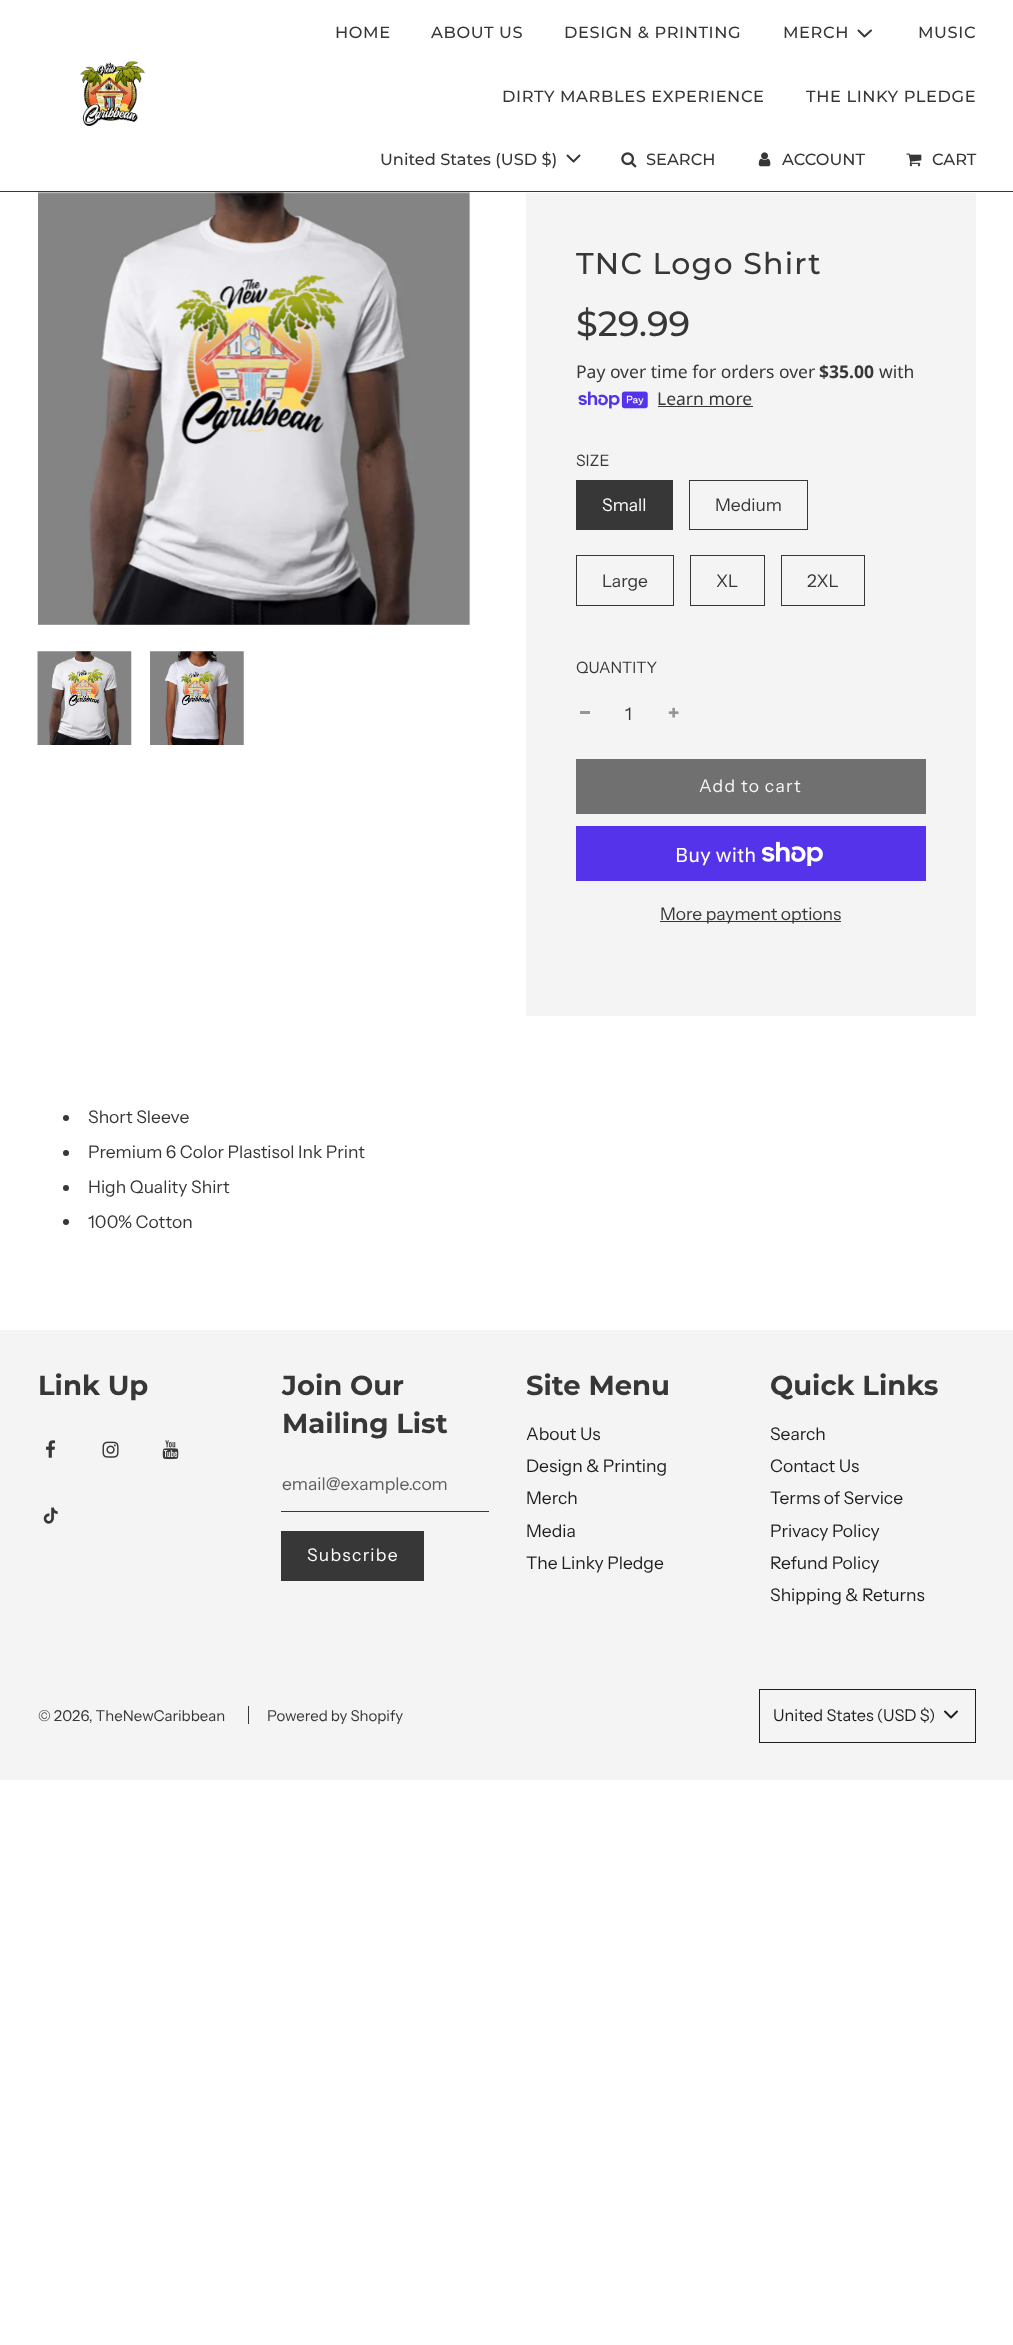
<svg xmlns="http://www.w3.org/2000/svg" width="1013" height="2345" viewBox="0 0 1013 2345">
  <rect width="100%" height="100%" fill="#ffffff"/>
  <rect x="0" y="191" width="1013" height="1" fill="#373737"/>
  <image x="80" y="61" width="65" height="66" href="img1.png"/>
  <text x="335" y="38" font-family="Montserrat" font-size="16.25" font-weight="500" letter-spacing="0.6" fill="#373737">HOME</text>
  <text x="431" y="38" font-family="Montserrat" font-size="16.25" font-weight="500" letter-spacing="0.6" fill="#373737">ABOUT US</text>
  <text x="564" y="38" font-family="Montserrat" font-size="16.25" font-weight="500" letter-spacing="0.6" fill="#373737">DESIGN &amp; PRINTING</text>
  <text x="783" y="38" font-family="Montserrat" font-size="16.25" font-weight="500" letter-spacing="0.6" fill="#373737">MERCH</text>
  <path d="M858.5 30.5L864.5 36.5L871 30.5" fill="none" stroke="#373737" stroke-width="2" stroke-linecap="round" stroke-linejoin="round"/>
  <text x="918" y="38" font-family="Montserrat" font-size="16.25" font-weight="500" letter-spacing="0.6" fill="#373737">MUSIC</text>
  <text x="502" y="102" font-family="Montserrat" font-size="16.25" font-weight="500" letter-spacing="0.6" fill="#373737">DIRTY MARBLES EXPERIENCE</text>
  <text x="806" y="102" font-family="Montserrat" font-size="16.25" font-weight="500" letter-spacing="0.6" fill="#373737">THE LINKY PLEDGE</text>
  <text x="380" y="165" font-family="Montserrat" font-size="16.25" font-weight="500" fill="#373737">United States (USD $)</text>
  <path d="M567.5 155.5L573.5 161.5L579.5 155.5" fill="none" stroke="#373737" stroke-width="2" stroke-linecap="round" stroke-linejoin="round"/>
  <image x="621" y="152" width="16" height="16" href="img2.png"/>
  <text x="646" y="165" font-family="Montserrat" font-size="16.25" font-weight="500" fill="#373737">SEARCH</text>
  <image x="758" y="152" width="13" height="15" href="img3.png"/>
  <text x="782" y="165" font-family="Montserrat" font-size="16.25" font-weight="500" fill="#373737">ACCOUNT</text>
  <image x="906" y="153" width="16" height="14" href="img4.png"/>
  <text x="932" y="165" font-family="Montserrat" font-size="16.25" font-weight="500" fill="#373737">CART</text>
  <image x="38" y="192" width="432" height="433" href="img5.png"/>
  <image x="37" y="651" width="95" height="94" href="img6.png"/>
  <image x="150" y="651" width="94" height="94" href="img7.png"/>
  <rect x="526" y="193" width="450" height="823" fill="#f4f4f4"/>
  <text x="576" y="274" font-family="Montserrat" font-size="30" font-weight="500" letter-spacing="1.25" fill="#373737">TNC Logo Shirt</text>
  <text x="576" y="336" font-family="Montserrat" font-size="35" font-weight="500" fill="#373737">$29.99</text>
  <text x="576" y="378" font-family="Noto Sans" font-size="17.5" fill="#373737">Pay over time for orders over</text>
  <text x="819" y="378" font-family="Noto Sans" font-size="17.5" font-weight="bold" fill="#373737">$35.00</text>
  <text x="879" y="378" font-family="Noto Sans" font-size="17.5" fill="#373737">with</text>
  <image x="578" y="391" width="70" height="18" href="img8.png"/>
  <text x="657" y="405" font-family="Noto Sans" font-size="17.5" fill="#373737">Learn more</text>
  <rect x="658" y="406" width="95" height="1" fill="#373737"/>
  <text x="576" y="466" font-family="Instrument Sans" font-size="15.75" fill="#373737">SIZE</text>
  <rect x="576" y="480" width="97" height="50" fill="#373737"/>
  <text x="602" y="511" font-family="Instrument Sans" font-size="17.5" fill="#ffffff">Small</text>
  <rect x="689.5" y="480.5" width="118" height="49" fill="none" stroke="#373737"/>
  <text x="715" y="511" font-family="Instrument Sans" font-size="17.5" fill="#373737">Medium</text>
  <rect x="576.5" y="555.5" width="97" height="50" fill="none" stroke="#373737"/>
  <text x="602" y="587" font-family="Instrument Sans" font-size="17.5" fill="#373737">Large</text>
  <rect x="690.5" y="555.5" width="74" height="50" fill="none" stroke="#373737"/>
  <text x="716" y="587" font-family="Instrument Sans" font-size="17.5" fill="#373737">XL</text>
  <rect x="781.5" y="555.5" width="83" height="50" fill="none" stroke="#373737"/>
  <text x="807" y="587" font-family="Instrument Sans" font-size="17.5" fill="#373737">2XL</text>
  <text x="576" y="673" font-family="Instrument Sans" font-size="15.75" fill="#373737">QUANTITY</text>
  <rect x="580" y="711" width="10" height="3" fill="#969696"/>
  <text x="625" y="720" font-family="Instrument Sans" font-size="17.5" fill="#373737">1</text>
  <image x="668" y="707" width="11" height="11" href="img9.png"/>
  <rect x="576" y="759" width="350" height="55" fill="#707070"/>
  <text x="699" y="792" font-family="Instrument Sans" font-size="17.5" letter-spacing="1.25" fill="#f8f8f8">Add to cart</text>
  <rect x="576" y="826" width="350" height="55" fill="#5433eb"/>
  <text x="675" y="862" font-family="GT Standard" font-size="20" fill="#ffffff">Buy with</text>
  <image x="761" y="841" width="62" height="25" href="img10.png"/>
  <rect x="660" y="921" width="181" height="1" fill="#373737"/>
  <text x="660" y="920" font-family="Instrument Sans" font-size="17.5" fill="#373737">More payment options</text>
  <circle cx="66" cy="1118" r="3" fill="#373737"/>
  <text x="88" y="1123" font-family="Instrument Sans" font-size="17.5" fill="#373737">Short Sleeve</text>
  <circle cx="66" cy="1153" r="3" fill="#373737"/>
  <text x="88" y="1158" font-family="Instrument Sans" font-size="17.5" fill="#373737">Premium 6 Color Plastisol Ink Print</text>
  <circle cx="66" cy="1188" r="3" fill="#373737"/>
  <text x="88" y="1193" font-family="Instrument Sans" font-size="17.5" fill="#373737">High Quality Shirt</text>
  <circle cx="66" cy="1222" r="3" fill="#373737"/>
  <text x="88" y="1228" font-family="Instrument Sans" font-size="17.5" fill="#373737">100% Cotton</text>
  <rect x="0" y="1330" width="1013" height="450" fill="#f4f4f4"/>
  <text x="38" y="1395" font-family="Montserrat" font-size="27.5" font-weight="bold" fill="#373737">Link Up</text>
  <image x="46" y="1440" width="10" height="18" href="img11.png"/>
  <image x="102" y="1441" width="17" height="17" href="img12.png"/>
  <image x="162" y="1440" width="17" height="20" href="img13.png"/>
  <image x="43" y="1507" width="15" height="17" href="img14.png"/>
  <text x="282" y="1395" font-family="Montserrat" font-size="27.5" font-weight="bold" fill="#373737">Join Our</text>
  <text x="282" y="1433" font-family="Montserrat" font-size="27.5" font-weight="bold" fill="#373737">Mailing List</text>
  <rect x="281" y="1511" width="208" height="1" fill="#373737"/>
  <text x="282" y="1490" font-family="Instrument Sans" font-size="17.5" fill="#5d5d5d">email@example.com</text>
  <rect x="281" y="1531" width="143" height="50" fill="#373737"/>
  <text x="307" y="1561" font-family="Instrument Sans" font-size="17.5" letter-spacing="1.25" fill="#ffffff">Subscribe</text>
  <text x="526" y="1395" font-family="Montserrat" font-size="27.5" font-weight="bold" fill="#373737">Site Menu</text>
  <text x="526" y="1440" font-family="Instrument Sans" font-size="17.5" fill="#1e1e1e">About Us</text>
  <text x="526" y="1472" font-family="Instrument Sans" font-size="17.5" fill="#1e1e1e">Design &amp; Printing</text>
  <text x="526" y="1504" font-family="Instrument Sans" font-size="17.5" fill="#1e1e1e">Merch</text>
  <text x="526" y="1537" font-family="Instrument Sans" font-size="17.5" fill="#1e1e1e">Media</text>
  <text x="526" y="1569" font-family="Instrument Sans" font-size="17.5" fill="#1e1e1e">The Linky Pledge</text>
  <text x="770" y="1395" font-family="Montserrat" font-size="27.5" font-weight="bold" fill="#373737">Quick Links</text>
  <text x="770" y="1440" font-family="Instrument Sans" font-size="17.5" fill="#1e1e1e">Search</text>
  <text x="770" y="1472" font-family="Instrument Sans" font-size="17.5" fill="#1e1e1e">Contact Us</text>
  <text x="770" y="1504" font-family="Instrument Sans" font-size="17.5" fill="#1e1e1e">Terms of Service</text>
  <text x="770" y="1537" font-family="Instrument Sans" font-size="17.5" fill="#1e1e1e">Privacy Policy</text>
  <text x="770" y="1569" font-family="Instrument Sans" font-size="17.5" fill="#1e1e1e">Refund Policy</text>
  <text x="770" y="1601" font-family="Instrument Sans" font-size="17.5" fill="#1e1e1e">Shipping &amp; Returns</text>
  <text x="38" y="1721" font-family="Instrument Sans" font-size="15" fill="#373737">© 2026, TheNewCaribbean</text>
  <rect x="248" y="1706" width="1" height="18" fill="#373737"/>
  <text x="267" y="1721" font-family="Instrument Sans" font-size="15" fill="#373737">Powered by Shopify</text>
  <rect x="759.5" y="1689.5" width="216" height="53" fill="none" stroke="#1e1e1e"/>
  <text x="773" y="1721" font-family="Instrument Sans" font-size="16.25" fill="#1e1e1e">United States (USD $)</text>
  <path d="M945 1711.5L951 1717.5L957 1711.5" fill="none" stroke="#1e1e1e" stroke-width="2" stroke-linecap="round" stroke-linejoin="round"/>
</svg>
